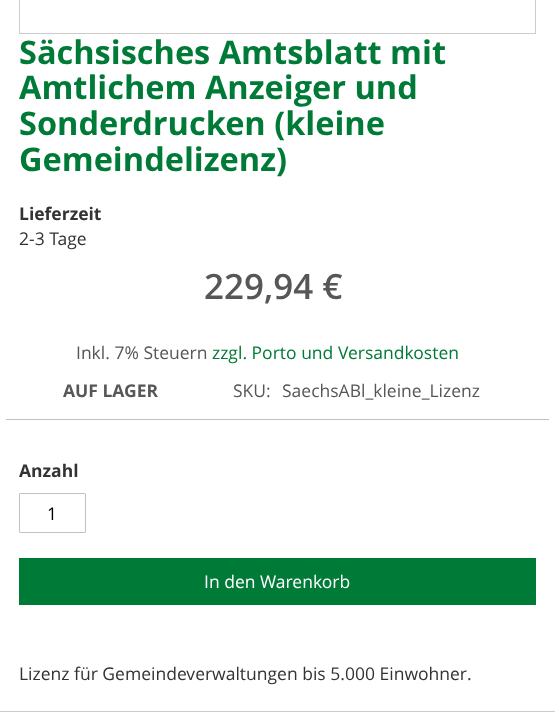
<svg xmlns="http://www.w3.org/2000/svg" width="555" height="724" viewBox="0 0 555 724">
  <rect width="100%" height="100%" fill="#ffffff"/>
  <rect x="19.5" y="-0.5" width="516" height="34" fill="none" stroke="#cccccc"/>
  <text x="19" y="64" font-family="Open Sans" font-size="32.5" font-weight="bold" fill="#007a37">Sächsisches Amtsblatt mit</text>
  <text x="19" y="99" font-family="Open Sans" font-size="32.5" font-weight="bold" fill="#007a37">Amtlichem Anzeiger und</text>
  <text x="19" y="135" font-family="Open Sans" font-size="32.5" font-weight="bold" fill="#007a37">Sonderdrucken (kleine</text>
  <text x="19" y="171" font-family="Open Sans" font-size="32.5" font-weight="bold" fill="#007a37">Gemeindelizenz)</text>
  <text x="19" y="220" font-family="'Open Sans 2'" font-size="17.5" font-weight="bold" fill="#333333">Lieferzeit</text>
  <text x="19" y="245" font-family="Open Sans" font-size="17.5" fill="#333333">2-3 Tage</text>
  <rect x="6" y="419" width="543" height="1" fill="#c1c1c1"/>
  <text x="204" y="299" font-family="Open Sans" font-size="35" font-weight="600" fill="#575757">229,94 €</text>
  <text x="76" y="359" font-family="Open Sans" font-size="17.5" fill="#575757">Inkl. 7% Steuern</text>
  <text x="212" y="359" font-family="Open Sans" font-size="17.5" fill="#007a37">zzgl. Porto und Versandkosten</text>
  <text x="63" y="397" font-family="'Open Sans 2'" font-size="17.5" font-weight="bold" fill="#575757">AUF LAGER</text>
  <text x="233" y="397" font-family="Open Sans" font-size="17.5" fill="#575757">SKU:</text>
  <text x="282" y="397" font-family="Open Sans" font-size="17.5" fill="#575757">SaechsABl_kleine_Lizenz</text>
  <text x="19" y="477" font-family="Open Sans" font-size="17.5" font-weight="bold" fill="#333333">Anzahl</text>
  <rect x="19.5" y="493.5" width="66" height="39" rx="0.5" fill="none" stroke="#c2c2c2"/>
  <text x="47" y="520" font-family="Open Sans" font-size="17.5" fill="#000000">1</text>
  <rect x="19" y="558" width="517" height="47" fill="#007a37"/>
  <text x="204" y="588" font-family="Open Sans" font-size="17.5" fill="#ffffff">In den Warenkorb</text>
  <text x="19" y="680" font-family="Open Sans" font-size="17.5" fill="#333333">Lizenz für Gemeindeverwaltungen bis 5.000 Einwohner.</text>
  <rect x="0" y="711" width="555" height="1" fill="#cccccc"/>
</svg>
